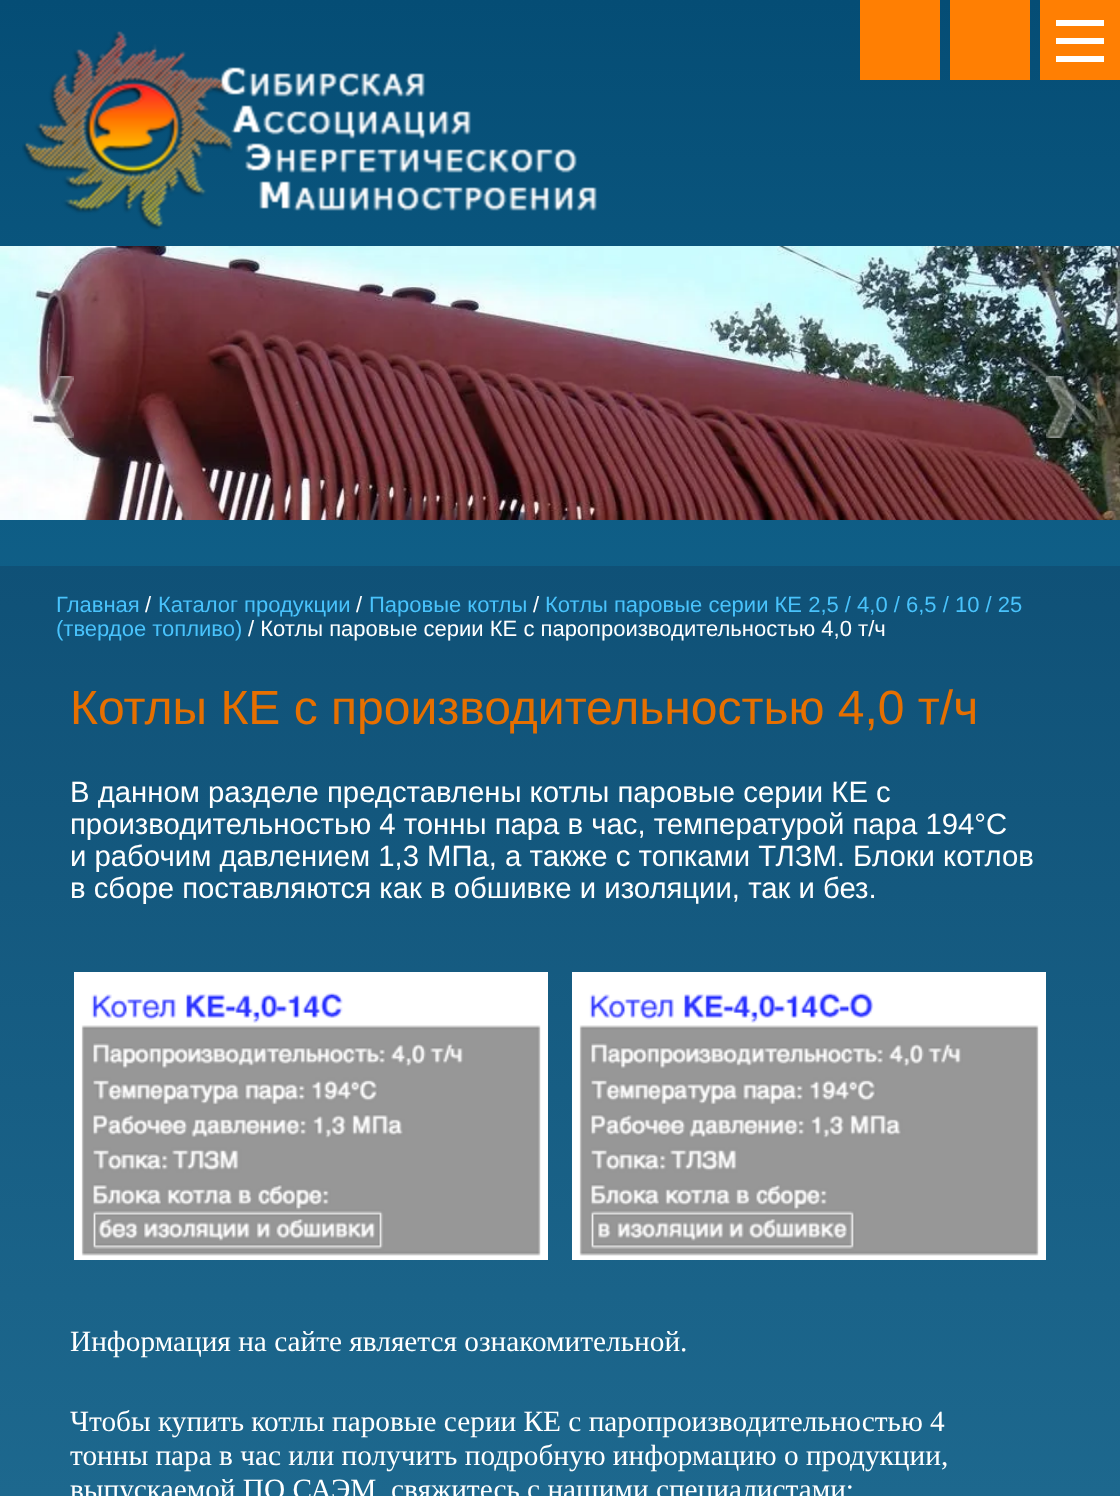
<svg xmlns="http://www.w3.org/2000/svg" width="1120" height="1496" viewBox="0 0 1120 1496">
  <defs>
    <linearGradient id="g1" gradientUnits="userSpaceOnUse" x1="560" y1="1496" x2="560" y2="0"><stop offset="0" stop-color="#207ba4"/><stop offset="1" stop-color="#054d75"/></linearGradient>
    <linearGradient id="g2" gradientUnits="userSpaceOnUse" x1="560" y1="1496" x2="560" y2="0"><stop offset="0" stop-color="#1d688e"/><stop offset="1" stop-color="#074369"/></linearGradient>
  </defs>
  <rect width="100%" height="100%" fill="#ffffff"/>
  <rect x="0" y="0" width="1120" height="566" fill="url(#g1)"/>
  <rect x="0" y="566" width="1120" height="930" fill="url(#g2)"/>
  <rect x="860" y="0" width="80" height="80" fill="#ff7f03"/>
  <rect x="950" y="0" width="80" height="80" fill="#ff7f03"/>
  <rect x="1040" y="0" width="80" height="80" fill="#ff7f03"/>
  <rect x="1056" y="20" width="48" height="6" fill="#ffffff"/>
  <rect x="1056" y="56" width="48" height="6" fill="#ffffff"/>
  <rect x="1056" y="38" width="48" height="6" fill="#ffffff"/>
  <image x="22" y="31" width="575" height="199" href="img1.png"/>
  <image x="0" y="246" width="1120" height="274" href="img2.png"/>
  <image x="44" y="376" width="30" height="62" href="img3.png"/>
  <image x="1046" y="376" width="30" height="62" href="img4.png"/>
  <text x="56" y="612" font-family="Liberation Sans" font-size="22" fill="#49c3fc">Главная</text>
  <text x="145" y="612" font-family="Liberation Sans" font-size="22" fill="#ffffff">/</text>
  <text x="158" y="612" font-family="Liberation Sans" font-size="22" fill="#49c3fc">Каталог продукции</text>
  <text x="356" y="612" font-family="Liberation Sans" font-size="22" fill="#ffffff">/</text>
  <text x="369" y="612" font-family="Liberation Sans" font-size="22" fill="#49c3fc">Паровые котлы</text>
  <text x="533" y="612" font-family="Liberation Sans" font-size="22" fill="#ffffff">/</text>
  <text x="545" y="612" font-family="Liberation Sans" font-size="22" fill="#49c3fc">Котлы паровые серии КЕ 2,5 / 4,0 / 6,5 / 10 / 25</text>
  <text x="56" y="636" font-family="Liberation Sans" font-size="22" fill="#49c3fc">(твердое топливо)</text>
  <text x="248" y="636" font-family="Liberation Sans" font-size="22" fill="#ffffff">/ Котлы паровые серии КЕ с паропроизводительностью 4,0 т/ч</text>
  <text x="70" y="724" font-family="Liberation Sans" font-size="48" fill="#e66f00">Котлы КЕ с производительностью 4,0 т/ч</text>
  <text x="70" y="802" font-family="Liberation Sans" font-size="29.3" fill="#ffffff">В данном разделе представлены котлы паровые серии КЕ с</text>
  <text x="70" y="834" font-family="Liberation Sans" font-size="29.3" fill="#ffffff">производительностью 4 тонны пара в час, температурой пара 194°C</text>
  <text x="70" y="866" font-family="Liberation Sans" font-size="29.3" fill="#ffffff">и рабочим давлением 1,3 МПа, а также с топками ТЛЗМ. Блоки котлов</text>
  <text x="70" y="898" font-family="Liberation Sans" font-size="29.3" fill="#ffffff">в сборе поставляются как в обшивке и изоляции, так и без.</text>
  <image x="74" y="972" width="474" height="288" href="img5.png"/>
  <image x="572" y="972" width="474" height="288" href="img6.png"/>
  <text x="70" y="1351" font-family="Liberation Serif" font-size="29.3" fill="#ffffff">Информация на сайте является ознакомительной.</text>
  <text x="70" y="1431" font-family="Liberation Serif" font-size="29.3" fill="#ffffff">Чтобы купить котлы паровые серии КЕ с паропроизводительностью 4</text>
  <text x="70" y="1465" font-family="Liberation Serif" font-size="29.3" fill="#ffffff">тонны пара в час или получить подробную информацию о продукции,</text>
  <text x="70" y="1499" font-family="Liberation Serif" font-size="29.3" fill="#ffffff">выпускаемой ПО САЭМ, свяжитесь с нашими специалистами:</text>
</svg>
